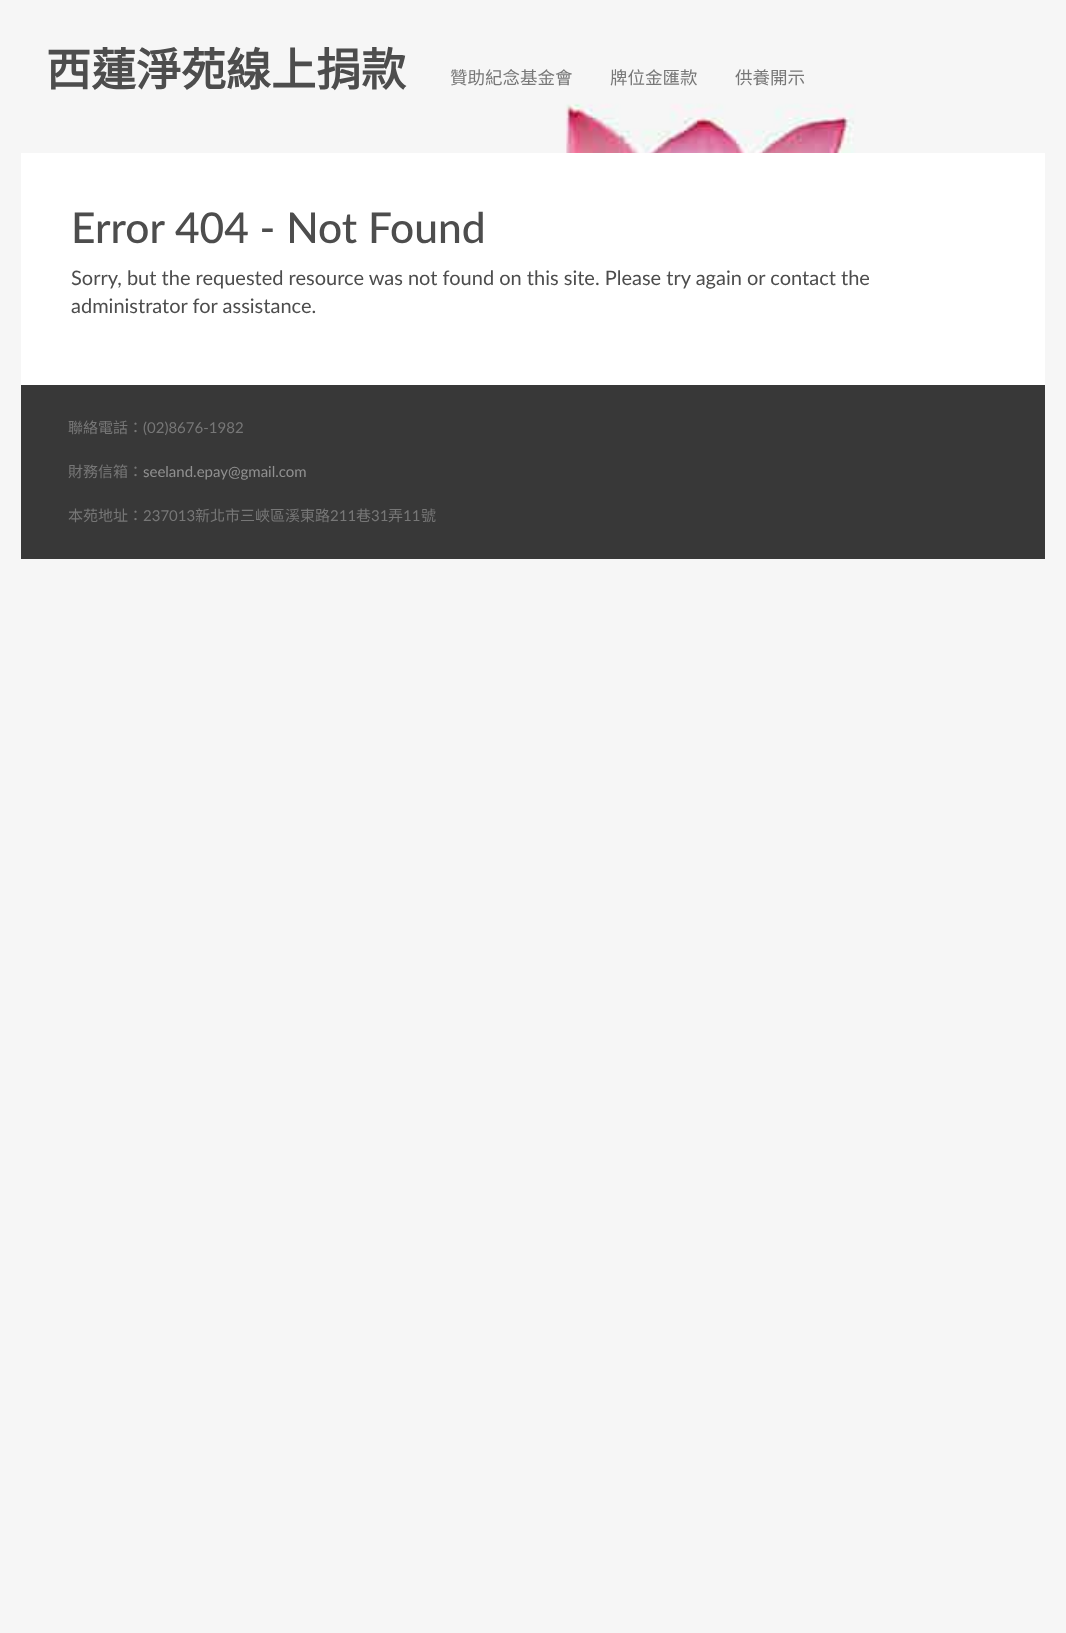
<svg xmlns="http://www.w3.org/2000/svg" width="1066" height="1633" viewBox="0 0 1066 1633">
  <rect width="100%" height="100%" fill="#f6f6f6"/>
  <image x="408" y="103" width="551" height="50" href="img1.png"/>
  <text x="46" y="86" font-family="Noto Sans CJK TC" font-size="45" font-weight="bold" fill="#4d4d4d">西蓮淨苑線上捐款</text>
  <text x="450" y="84" font-family="Noto Sans CJK TC" font-size="17.5" fill="#777777">贊助紀念基金會</text>
  <text x="610" y="84" font-family="Noto Sans CJK TC" font-size="17.5" fill="#777777">牌位金匯款</text>
  <text x="735" y="84" font-family="Noto Sans CJK TC" font-size="17.5" fill="#777777">供養開示</text>
  <rect x="21" y="153" width="1024" height="232" fill="#ffffff"/>
  <text x="71" y="243" font-family="Lato" font-size="42.5" font-weight="500" fill="#4d4d4d">Error 404 - Not Found</text>
  <text x="71" y="285" font-family="Lato" font-size="20" fill="#4d4d4d">Sorry, but the requested resource was not found on this site. Please try again or contact the</text>
  <text x="71" y="313" font-family="Lato" font-size="20" fill="#4d4d4d">administrator for assistance.</text>
  <rect x="21" y="385" width="1024" height="174" fill="#383838"/>
  <text x="68" y="433" font-family="Noto Sans CJK TC" font-size="15" fill="#777777">聯絡電話：</text>
  <text x="143" y="433" font-family="Lato" font-size="15" fill="#777777">(02)8676-1982</text>
  <text x="68" y="477" font-family="Noto Sans CJK TC" font-size="15" fill="#777777">財務信箱：</text>
  <text x="143" y="477" font-family="Lato" font-size="15" fill="#919191">seeland.epay@gmail.com</text>
  <text x="68" y="521" font-family="Noto Sans CJK TC" font-size="15" fill="#777777">本苑地址：</text>
  <text x="143" y="521" font-family="Lato" font-size="15" fill="#777777">237013</text>
  <text x="195" y="521" font-family="Noto Sans CJK TC" font-size="15" fill="#777777">新北市三峽區溪東路</text>
  <text x="330" y="521" font-family="Lato" font-size="15" fill="#777777">211</text>
  <text x="356" y="521" font-family="Noto Sans CJK TC" font-size="15" fill="#777777">巷</text>
  <text x="371" y="521" font-family="Lato" font-size="15" fill="#777777">31</text>
  <text x="388" y="521" font-family="Noto Sans CJK TC" font-size="15" fill="#777777">弄</text>
  <text x="403" y="521" font-family="Lato" font-size="15" fill="#777777">11</text>
  <text x="421" y="521" font-family="Noto Sans CJK TC" font-size="15" fill="#777777">號</text>
</svg>
